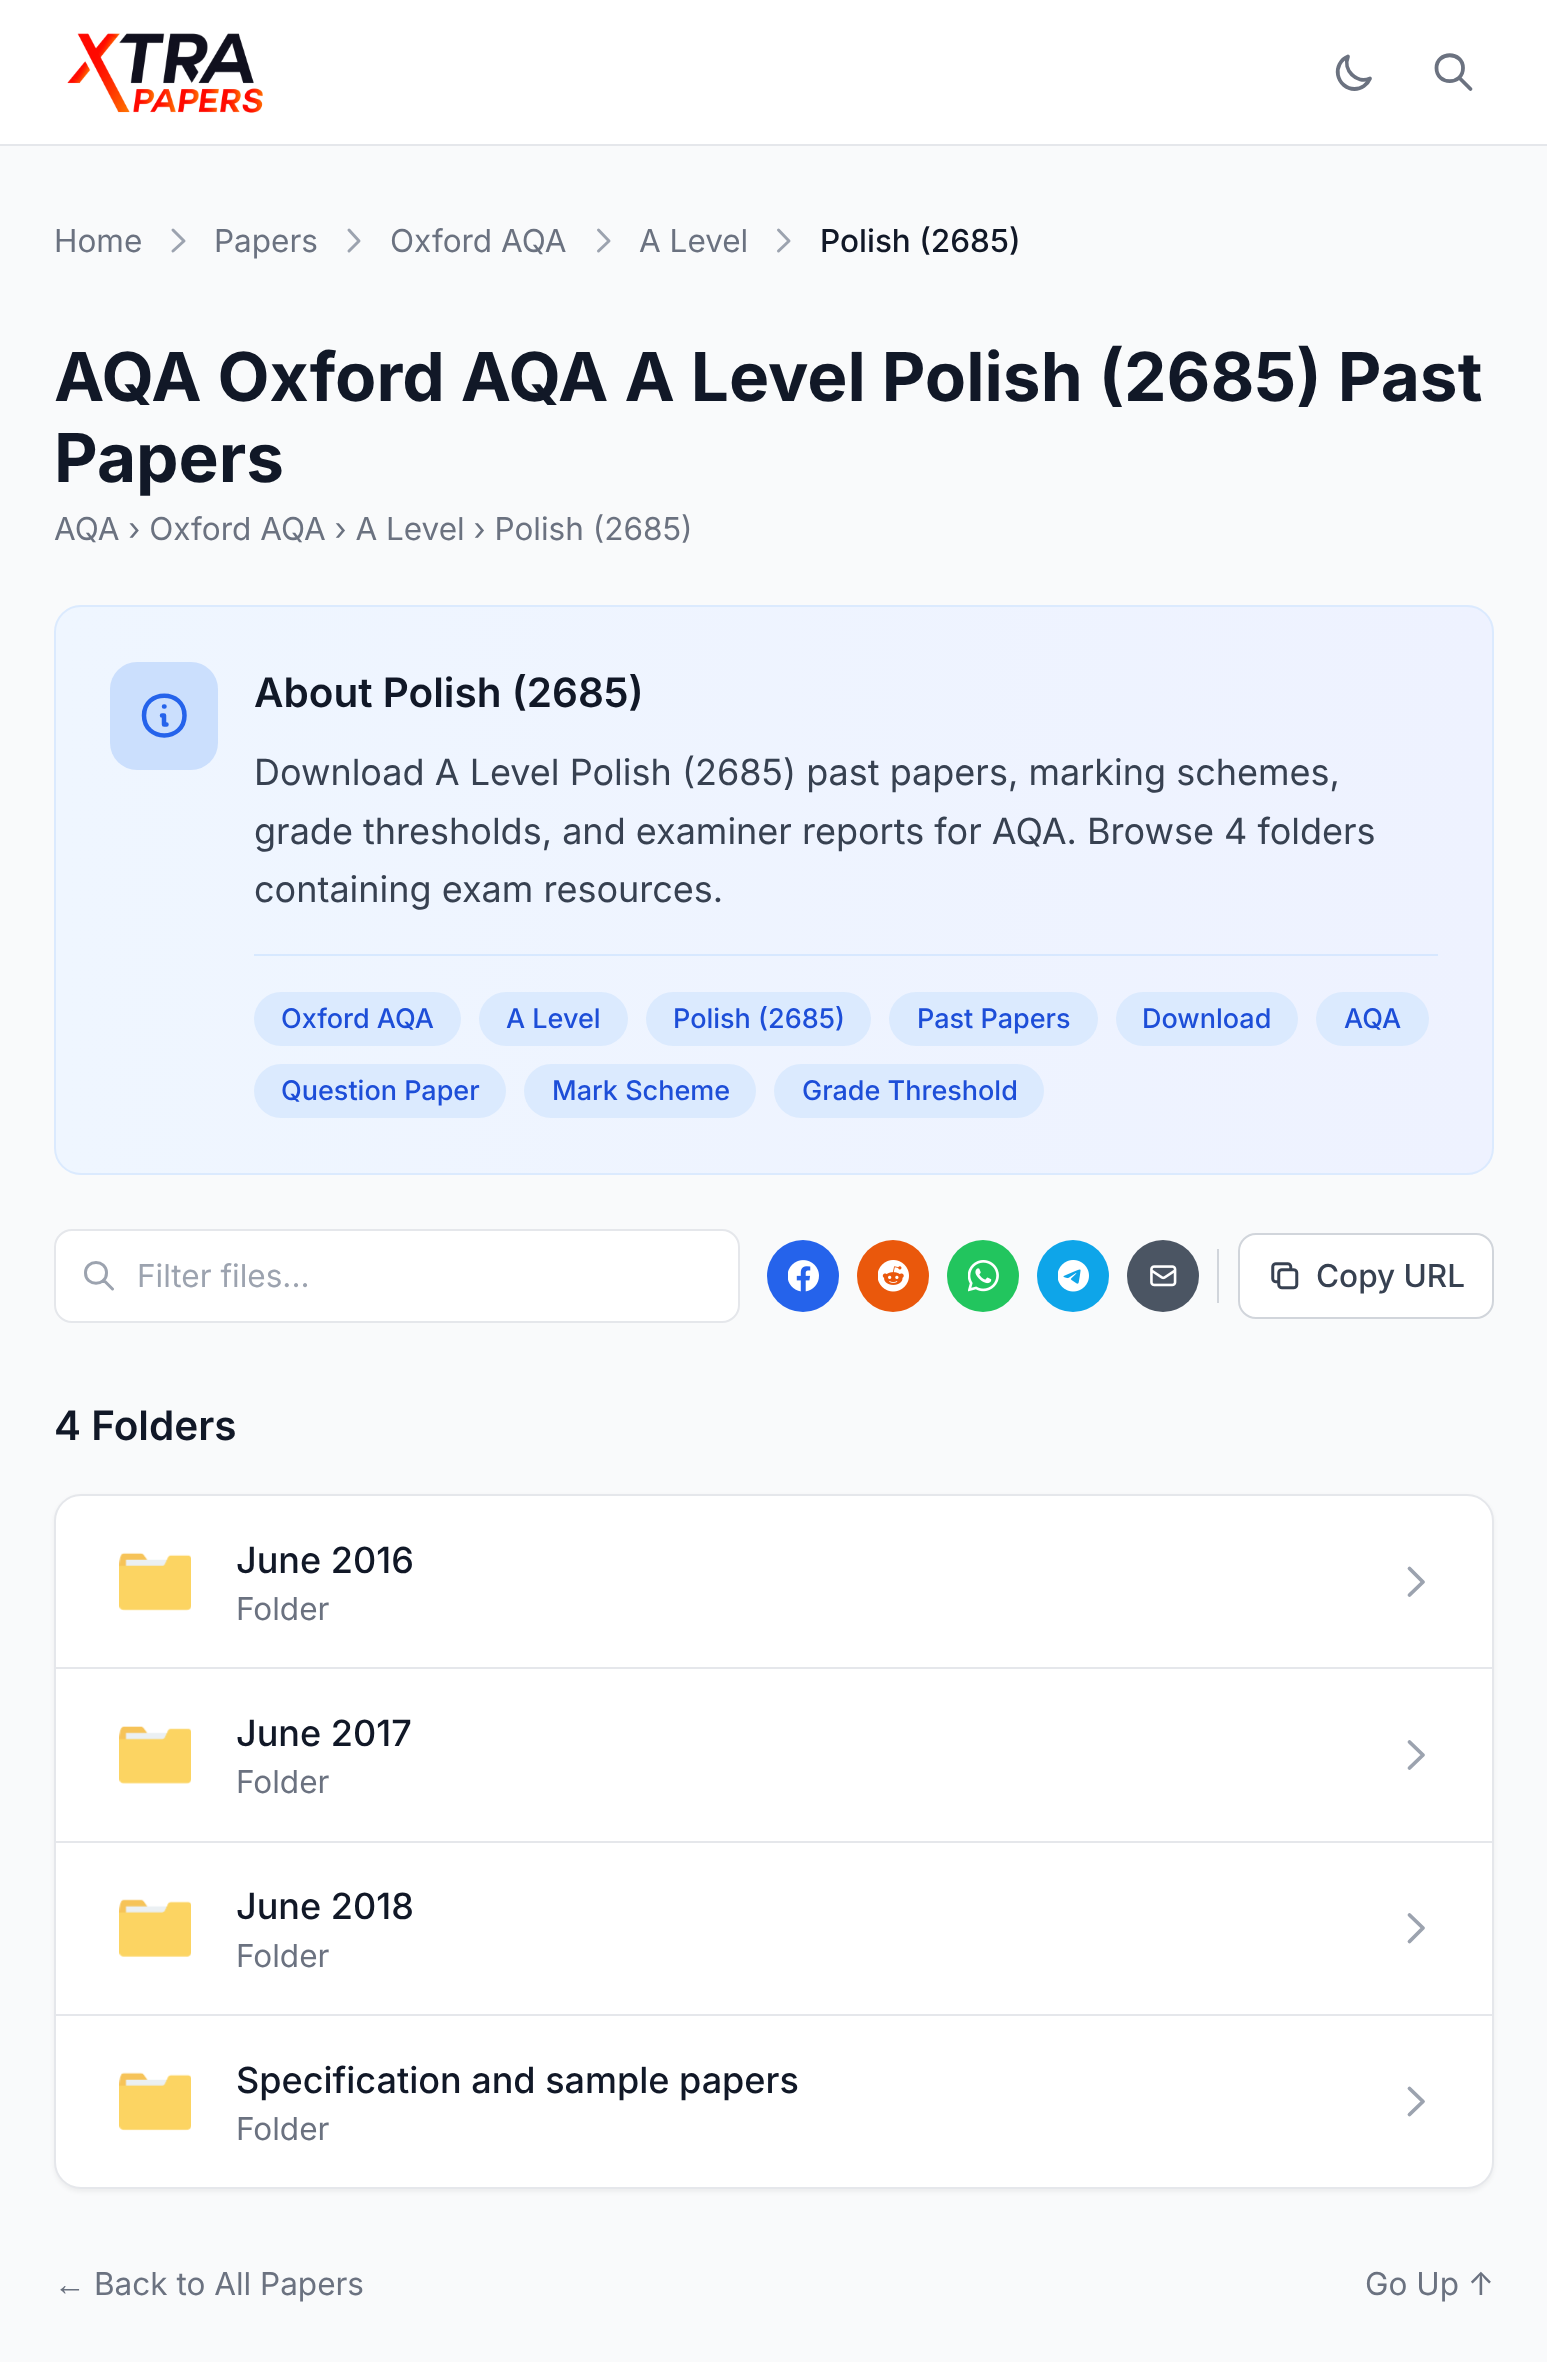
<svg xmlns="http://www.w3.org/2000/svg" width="1547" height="2362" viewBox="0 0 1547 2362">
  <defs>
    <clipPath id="clip1"><rect x="54" y="605" width="1440" height="570" rx="27"/></clipPath>
    <linearGradient id="g1" gradientUnits="userSpaceOnUse" x1="56" y1="890" x2="1492" y2="890"><stop offset="0" stop-color="#eff6ff"/><stop offset="1" stop-color="#eef2ff"/></linearGradient>
    <linearGradient id="g2" gradientUnits="userSpaceOnUse" x1="56" y1="890" x2="1492" y2="890"><stop offset="0" stop-color="#d7e9ff"/><stop offset="1" stop-color="#d7e7ff"/></linearGradient>
    <filter id="blur1" x="-50%" y="-200%" width="200%" height="500%"><feGaussianBlur stdDeviation="2"/></filter>
  </defs>
  <rect width="100%" height="100%" fill="#f9fafb"/>
  <rect x="0" y="0" width="1547" height="144" fill="#ffffff"/>
  <rect x="0" y="144" width="1547" height="2" fill="#e5e7eb"/>
  <image x="67" y="33" width="196" height="80" href="img1.png"/>
  <path d="M1370 78.5C1356.5 84 1342.5 70 1348 56.5C1340.5 59.5 1336.5 67.5 1338 75C1339.5 83 1346.5 89 1354.5 89C1361.5 89 1367.5 84.5 1370 78.5Z" fill="none" stroke="#6b7280" stroke-width="3.8" stroke-linecap="round" stroke-linejoin="round"/>
  <path d="M1470.5 89L1459 77.5M1463 68C1463 85.5 1436.5 85.5 1436.5 68C1436.5 51 1463 51 1463 68Z" fill="none" stroke="#6b7280" stroke-width="3.8" stroke-linecap="round" stroke-linejoin="round"/>
  <text x="54" y="252" font-family="Inter" font-size="31.5" fill="#6b7280">Home</text>
  <path d="M173 230L184 241L173 251" fill="none" stroke="#9ca3af" stroke-width="3" stroke-linecap="round" stroke-linejoin="round"/>
  <text x="214" y="252" font-family="Inter" font-size="31.5" fill="#6b7280">Papers</text>
  <path d="M349 230L359 241L349 251" fill="none" stroke="#9ca3af" stroke-width="3" stroke-linecap="round" stroke-linejoin="round"/>
  <text x="390" y="252" font-family="Inter" font-size="31.5" fill="#6b7280">Oxford AQA</text>
  <path d="M598.5 230L609 241L598.5 251" fill="none" stroke="#9ca3af" stroke-width="3" stroke-linecap="round" stroke-linejoin="round"/>
  <text x="639" y="252" font-family="Inter" font-size="31.5" fill="#6b7280">A Level</text>
  <path d="M778.5 230L789 241L778.5 251" fill="none" stroke="#9ca3af" stroke-width="3" stroke-linecap="round" stroke-linejoin="round"/>
  <text x="820" y="252" font-family="Inter" font-size="31.5" font-weight="500" fill="#111827">Polish (2685)</text>
  <text x="54" y="401" font-family="Inter" font-size="67.5" font-weight="bold" fill="#111827">AQA Oxford AQA A Level Polish (2685) Past</text>
  <text x="54" y="482" font-family="Inter" font-size="67.5" font-weight="bold" fill="#111827">Papers</text>
  <text x="54" y="540" font-family="Inter" font-size="31.5" fill="#6b7280">AQA › Oxford AQA › A Level › Polish (2685)</text>
  <g clip-path="url(#clip1)">
    <rect x="56" y="605" width="1436" height="570" fill="url(#g1)"/>
  </g>
  <rect x="254" y="954" width="1184" height="2" fill="url(#g2)"/>
  <rect x="55" y="606" width="1438" height="568" rx="26" fill="none" stroke="#dbeafe" stroke-width="2"/>
  <rect x="110" y="662" width="108" height="108" rx="27" fill="#cbdffd"/>
  <path d="M166.5 724.5H164V715.5H162M164 706.5H164.5M184.5 715.5C184.5 742 144 742 144 715.5C144 689 184.5 689 184.5 715.5Z" fill="none" stroke="#2563eb" stroke-width="4.5" stroke-linecap="round" stroke-linejoin="round"/>
  <text x="254" y="707" font-family="Inter" font-size="40.5" font-weight="600" fill="#111827">About Polish (2685)</text>
  <text x="254" y="785" font-family="Inter" font-size="36" fill="#374151">Download A Level Polish (2685) past papers, marking schemes,</text>
  <text x="254" y="844" font-family="Inter" font-size="36" fill="#374151">grade thresholds, and examiner reports for AQA. Browse 4 folders</text>
  <text x="254" y="902" font-family="Inter" font-size="36" fill="#374151">containing exam resources.</text>
  <rect x="254" y="992" width="207" height="54" rx="27" fill="#dbeafe"/>
  <text x="281" y="1028" font-family="Inter" font-size="27" font-weight="500" fill="#1d4ed8">Oxford AQA</text>
  <rect x="479" y="992" width="149" height="54" rx="27" fill="#dbeafe"/>
  <text x="506" y="1028" font-family="Inter" font-size="27" font-weight="500" fill="#1d4ed8">A Level</text>
  <rect x="646" y="992" width="225" height="54" rx="27" fill="#dbeafe"/>
  <text x="673" y="1028" font-family="Inter" font-size="27" font-weight="500" fill="#1d4ed8">Polish (2685)</text>
  <rect x="889" y="992" width="209" height="54" rx="27" fill="#dbeafe"/>
  <text x="917" y="1028" font-family="Inter" font-size="27" font-weight="500" fill="#1d4ed8">Past Papers</text>
  <rect x="1116" y="992" width="182" height="54" rx="27" fill="#dbeafe"/>
  <text x="1142" y="1028" font-family="Inter" font-size="27" font-weight="500" fill="#1d4ed8">Download</text>
  <rect x="1316" y="992" width="113" height="54" rx="27" fill="#dbeafe"/>
  <text x="1344" y="1028" font-family="Inter" font-size="27" font-weight="500" fill="#1d4ed8">AQA</text>
  <rect x="254" y="1064" width="252" height="54" rx="27" fill="#dbeafe"/>
  <text x="281" y="1100" font-family="Inter" font-size="27" font-weight="500" fill="#1d4ed8">Question Paper</text>
  <rect x="524" y="1064" width="232" height="54" rx="27" fill="#dbeafe"/>
  <text x="552" y="1100" font-family="Inter" font-size="27" font-weight="500" fill="#1d4ed8">Mark Scheme</text>
  <rect x="774" y="1064" width="270" height="54" rx="27" fill="#dbeafe"/>
  <text x="802" y="1100" font-family="Inter" font-size="27" font-weight="500" fill="#1d4ed8">Grade Threshold</text>
  <rect x="55" y="1230" width="684" height="92" rx="17" fill="#ffffff" stroke="#e5e7eb" stroke-width="2"/>
  <path d="M112.5 1289L103.5 1280M106.5 1273C106.5 1286.5 85.5 1286.5 85.5 1273C85.5 1259 106.5 1259 106.5 1273Z" fill="none" stroke="#9ca3af" stroke-width="3" stroke-linecap="round" stroke-linejoin="round"/>
  <text x="137" y="1287" font-family="Inter" font-size="31.5" fill="#9ca3af">Filter files...</text>
  <circle cx="803" cy="1276" r="36" fill="#2563eb"/>
  <image x="788" y="1260" width="31" height="32" href="img2.png"/>
  <circle cx="893" cy="1276" r="36" fill="#ea580c"/>
  <image x="878" y="1260" width="31" height="32" href="img3.png"/>
  <circle cx="983" cy="1276" r="36" fill="#22c55e"/>
  <image x="968" y="1260" width="31" height="32" href="img4.png"/>
  <circle cx="1073" cy="1276" r="36" fill="#0ea5e9"/>
  <image x="1058" y="1260" width="31" height="32" href="img5.png"/>
  <circle cx="1163" cy="1276" r="36" fill="#4b5563"/>
  <image x="1150" y="1265" width="27" height="22" href="img6.png"/>
  <rect x="1217" y="1249" width="2" height="54" fill="#d1d5db"/>
  <rect x="1239" y="1234" width="254" height="84" rx="17" fill="#ffffff" stroke="#d1d5db" stroke-width="2"/>
  <image x="1271" y="1262" width="28" height="28" href="img7.png"/>
  <text x="1316" y="1287" font-family="Inter" font-size="31.5" font-weight="500" fill="#374151">Copy URL</text>
  <text x="54" y="1440" font-family="Inter" font-size="40.5" font-weight="600" fill="#111827">4 Folders</text>
  <rect x="54" y="1496" width="1440" height="696" rx="27" fill="#000000" fill-opacity="0.05" filter="url(#blur1)"/>
  <rect x="55" y="1495" width="1438" height="693" rx="26" fill="#ffffff" stroke="#e5e7eb" stroke-width="2"/>
  <image x="119" y="1552" width="72" height="59" href="img8.png"/>
  <text x="236" y="1573" font-family="Inter" font-size="36" font-weight="500" fill="#111827">June 2016</text>
  <text x="236" y="1620" font-family="Inter" font-size="31.5" fill="#6b7280">Folder</text>
  <path d="M1409.5 1568.5L1423 1582L1409.5 1595" fill="none" stroke="#9ca3af" stroke-width="3.8" stroke-linecap="round" stroke-linejoin="round"/>
  <rect x="56" y="1667" width="1436" height="2" fill="#e5e7eb"/>
  <image x="119" y="1726" width="72" height="58" href="img9.png"/>
  <text x="236" y="1746" font-family="Inter" font-size="36" font-weight="500" fill="#111827">June 2017</text>
  <text x="236" y="1793" font-family="Inter" font-size="31.5" fill="#6b7280">Folder</text>
  <path d="M1409.5 1742L1423 1755L1409.5 1768" fill="none" stroke="#9ca3af" stroke-width="3.8" stroke-linecap="round" stroke-linejoin="round"/>
  <rect x="56" y="1841" width="1436" height="2" fill="#e5e7eb"/>
  <image x="119" y="1899" width="72" height="58" href="img10.png"/>
  <text x="236" y="1919" font-family="Inter" font-size="36" font-weight="500" fill="#111827">June 2018</text>
  <text x="236" y="1967" font-family="Inter" font-size="31.5" fill="#6b7280">Folder</text>
  <path d="M1409.5 1915L1423 1928L1409.5 1941.5" fill="none" stroke="#9ca3af" stroke-width="3.8" stroke-linecap="round" stroke-linejoin="round"/>
  <rect x="56" y="2014" width="1436" height="2" fill="#e5e7eb"/>
  <image x="119" y="2072" width="72" height="59" href="img11.png"/>
  <text x="236" y="2093" font-family="Inter" font-size="36" font-weight="500" fill="#111827">Specification and sample papers</text>
  <text x="236" y="2140" font-family="Inter" font-size="31.5" fill="#6b7280">Folder</text>
  <path d="M1409.5 2088.5L1423 2101.5L1409.5 2114.5" fill="none" stroke="#9ca3af" stroke-width="3.8" stroke-linecap="round" stroke-linejoin="round"/>
  <text x="54" y="2295" font-family="Liberation Sans" font-size="31.5" fill="#6b7280">←</text>
  <text x="94" y="2295" font-family="Inter" font-size="31.5" fill="#6b7280">Back to All Papers</text>
  <text x="1365" y="2295" font-family="Inter" font-size="31.5" fill="#6b7280">Go Up ↑</text>
</svg>
